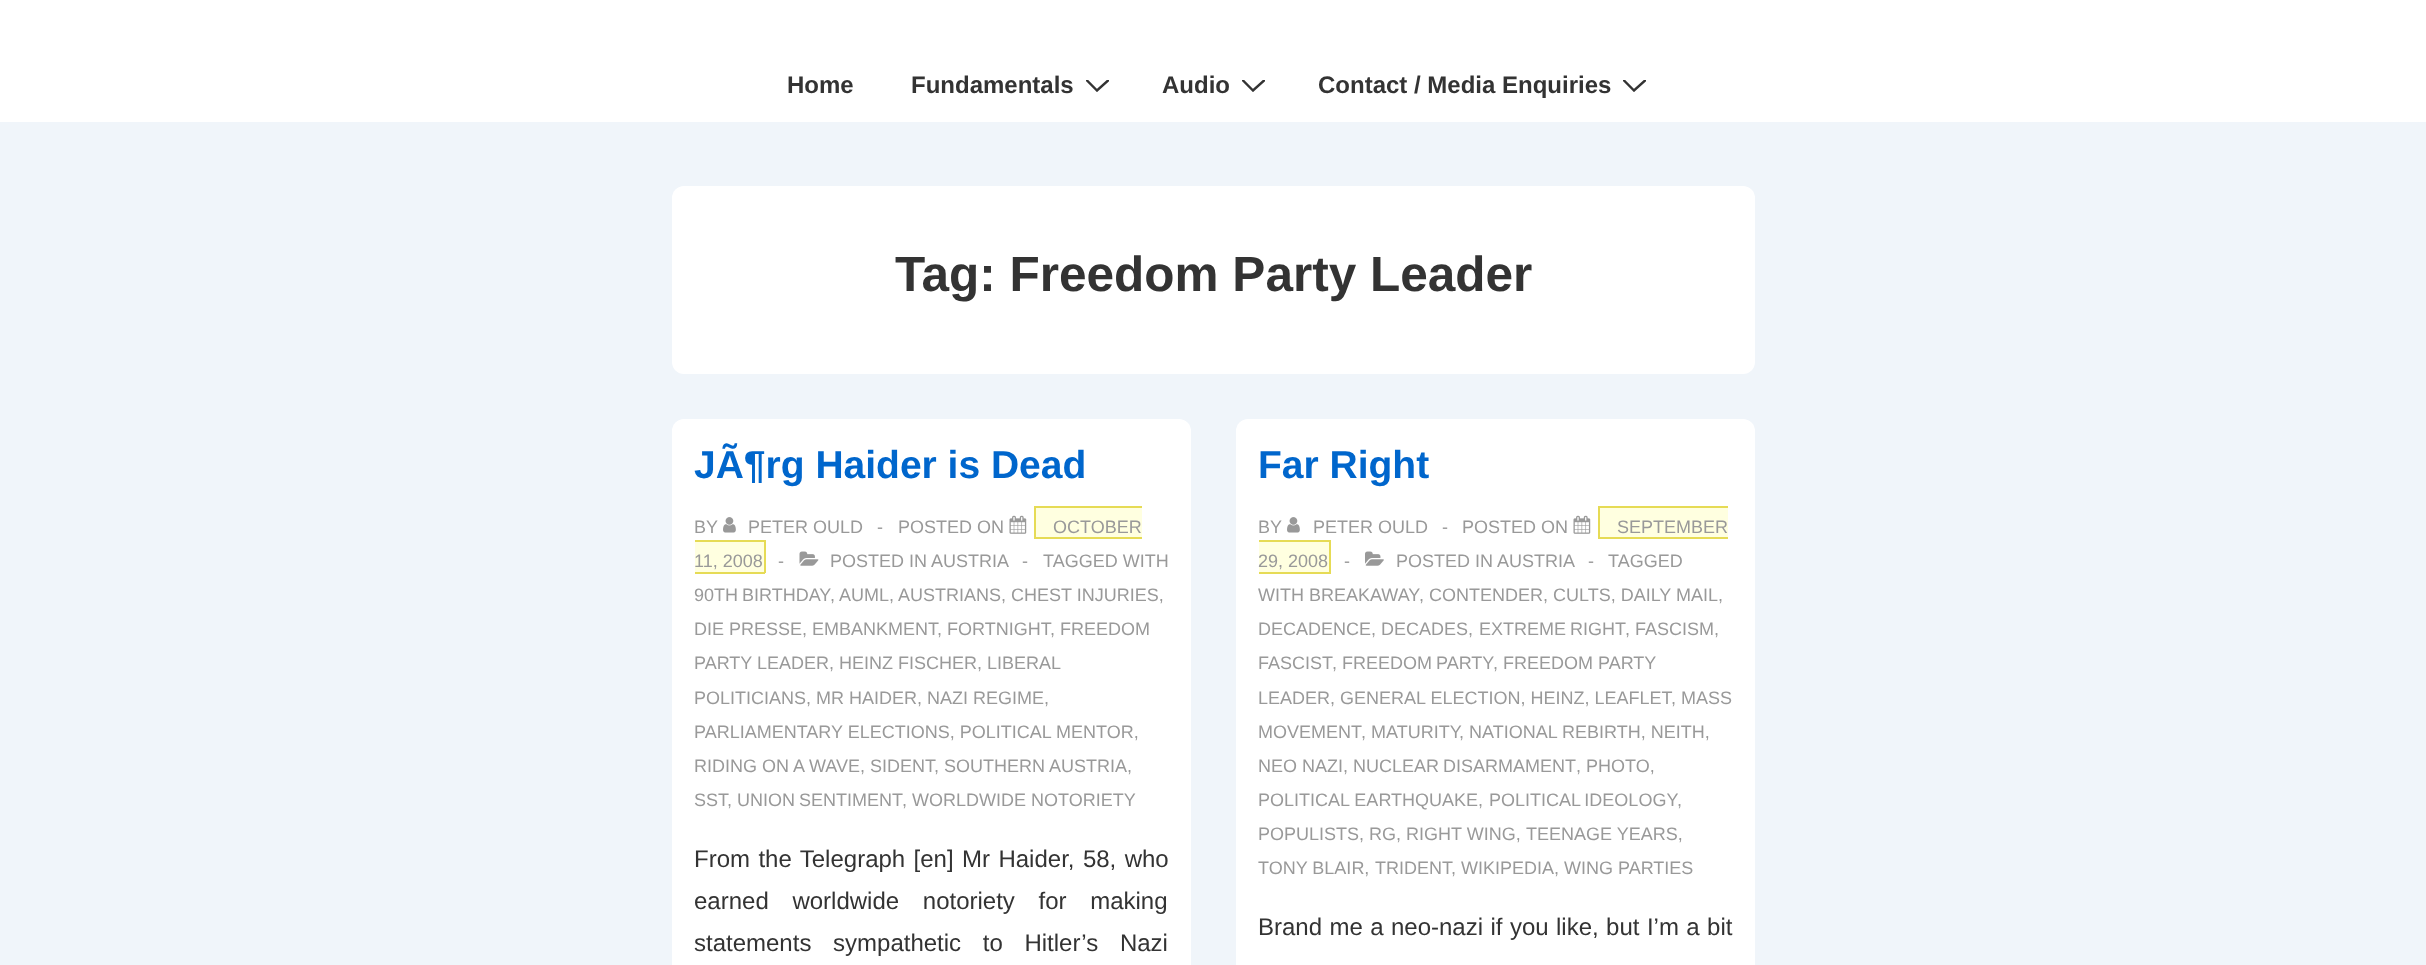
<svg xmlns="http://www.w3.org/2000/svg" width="2426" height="965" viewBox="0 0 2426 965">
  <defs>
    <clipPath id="clip1"><rect x="1086" y="80" width="23" height="12"/></clipPath>
    <clipPath id="clip2"><rect x="1242" y="80" width="23" height="12"/></clipPath>
    <clipPath id="clip3"><rect x="1623" y="80" width="23" height="12"/></clipPath>
  </defs>
  <rect width="100%" height="100%" fill="#f0f5fa"/>
  <rect x="0" y="0" width="2426" height="122" fill="#ffffff"/>
  <text x="787" y="93" font-family="Liberation Sans" font-size="24" font-weight="bold" fill="#333333">Home</text>
  <text x="911" y="93" font-family="Liberation Sans" font-size="24" font-weight="bold" fill="#333333">Fundamentals</text>
  <g clip-path="url(#clip1)">
    <path d="M1087 80.5L1097 90.5L1108 80.5" fill="none" stroke="#333333" stroke-width="2.4" stroke-linecap="round"/>
  </g>
  <text x="1162" y="93" font-family="Liberation Sans" font-size="24" font-weight="bold" fill="#333333">Audio</text>
  <g clip-path="url(#clip2)">
    <path d="M1243 80.5L1253 90.5L1264 80.5" fill="none" stroke="#333333" stroke-width="2.4" stroke-linecap="round"/>
  </g>
  <text x="1318" y="93" font-family="Liberation Sans" font-size="24" font-weight="bold" fill="#333333">Contact / Media Enquiries</text>
  <g clip-path="url(#clip3)">
    <path d="M1624 80.5L1634 90.5L1645 80.5" fill="none" stroke="#333333" stroke-width="2.4" stroke-linecap="round"/>
  </g>
  <rect x="672" y="186" width="1083" height="188" rx="12" fill="#ffffff"/>
  <text x="895" y="291" font-family="Liberation Sans" font-size="49.5" font-weight="bold" fill="#333333">Tag: Freedom Party Leader</text>
  <rect x="672" y="419" width="519" height="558" rx="12" fill="#ffffff"/>
  <text x="694" y="478" font-family="Liberation Sans" font-size="39" font-weight="bold" fill="#0066cc">JÃ¶rg Haider is Dead</text>
  <text x="694" y="533" font-family="Liberation Sans" font-size="18" fill="#999999">BY</text>
  <image x="723" y="517" width="13" height="16" href="img1.png"/>
  <text x="748" y="533" font-family="Liberation Sans" font-size="18" fill="#999999">PETER OULD</text>
  <text x="877" y="533" font-family="Liberation Sans" font-size="18" fill="#999999">-</text>
  <text x="898" y="533" font-family="Liberation Sans" font-size="18" fill="#999999">POSTED ON</text>
  <image x="1009" y="515" width="18" height="19" href="img2.png"/>
  <rect x="1036" y="508" width="106" height="29" fill="#ffffe0"/>
  <text x="1053" y="533" font-family="Liberation Sans" font-size="18" fill="#999999">OCTOBER</text>
  <rect x="1034" y="506" width="108" height="2" fill="#e6db55"/>
  <rect x="1034" y="537" width="108" height="2" fill="#e6db55"/>
  <rect x="1034" y="506" width="2" height="33" fill="#e6db55"/>
  <rect x="695" y="542" width="69" height="30" fill="#ffffe0"/>
  <text x="694" y="567" font-family="Liberation Sans" font-size="18" fill="#999999">11, 2008</text>
  <rect x="695" y="540" width="70" height="2" fill="#e6db55"/>
  <rect x="764" y="540" width="2" height="33" fill="#e6db55"/>
  <rect x="695" y="572" width="70" height="2" fill="#e6db55"/>
  <text x="778" y="567" font-family="Liberation Sans" font-size="18" fill="#999999">-</text>
  <image x="799" y="551" width="20" height="15" href="img3.png"/>
  <text x="830" y="567" font-family="Liberation Sans" font-size="18" fill="#999999">POSTED IN</text>
  <text x="931" y="567" font-family="Liberation Sans" font-size="18" fill="#999999">AUSTRIA</text>
  <text x="1022" y="567" font-family="Liberation Sans" font-size="18" fill="#999999">-</text>
  <text x="1043" y="567" font-family="Liberation Sans" font-size="18" fill="#999999">TAGGED WITH</text>
  <text x="694" y="601" word-spacing="-1" font-family="Liberation Sans" font-size="18" fill="#999999">90TH BIRTHDAY</text>
  <text x="830" y="601" font-family="Liberation Sans" font-size="18" fill="#999999">,</text>
  <text x="839" y="601" font-family="Liberation Sans" font-size="18" fill="#999999">AUML,</text>
  <text x="898" y="601" font-family="Liberation Sans" font-size="18" fill="#999999">AUSTRIANS, CHEST INJURIES,</text>
  <text x="694" y="635" font-family="Liberation Sans" font-size="18" fill="#999999">DIE PRESSE, EMBANKMENT</text>
  <text x="937" y="635" font-family="Liberation Sans" font-size="18" fill="#999999">, FORTNIGHT</text>
  <text x="1050" y="635" font-family="Liberation Sans" font-size="18" fill="#999999">, FREEDOM</text>
  <text x="694" y="669" font-family="Liberation Sans" font-size="18" fill="#999999">PARTY LEADER, HEINZ FISCHER, LIBERAL</text>
  <text x="694" y="704" font-family="Liberation Sans" font-size="18" fill="#999999">POLITICIANS, MR HAIDER, NAZI REGIME,</text>
  <text x="694" y="738" font-family="Liberation Sans" font-size="18" fill="#999999">PARLIAMENTARY ELECTIONS, POLITICAL MENTOR,</text>
  <text x="694" y="772" font-family="Liberation Sans" font-size="18" fill="#999999">RIDING ON A WAVE, SIDENT</text>
  <text x="934" y="772" font-family="Liberation Sans" font-size="18" fill="#999999">, SOUTHERN AUSTRIA,</text>
  <text x="694" y="806" font-family="Liberation Sans" font-size="18" fill="#999999">SST</text>
  <text x="727" y="806" font-family="Liberation Sans" font-size="18" fill="#999999">,</text>
  <text x="737" y="806" word-spacing="-1" font-family="Liberation Sans" font-size="18" fill="#999999">UNION SENTIMENT</text>
  <text x="902" y="806" font-family="Liberation Sans" font-size="18" fill="#999999">, WORLDWIDE NOTORIETY</text>
  <text x="694" y="867" word-spacing="1.75" font-family="Liberation Sans" font-size="24" fill="#333333">From the Telegraph [en] Mr Haider, 58, who</text>
  <text x="694" y="909" word-spacing="17" font-family="Liberation Sans" font-size="24" fill="#333333">earned worldwide notoriety for making</text>
  <text x="694" y="951" word-spacing="15" font-family="Liberation Sans" font-size="24" fill="#333333">statements sympathetic to Hitler’s Nazi</text>
  <rect x="1236" y="419" width="519" height="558" rx="12" fill="#ffffff"/>
  <text x="1258" y="478" font-family="Liberation Sans" font-size="39" font-weight="bold" fill="#0066cc">Far Right</text>
  <text x="1258" y="533" font-family="Liberation Sans" font-size="18" fill="#999999">BY</text>
  <image x="1287" y="517" width="13" height="16" href="img1.png"/>
  <text x="1313" y="533" font-family="Liberation Sans" font-size="18" fill="#999999">PETER OULD</text>
  <text x="1442" y="533" font-family="Liberation Sans" font-size="18" fill="#999999">-</text>
  <text x="1462" y="533" font-family="Liberation Sans" font-size="18" fill="#999999">POSTED ON</text>
  <image x="1573" y="515" width="18" height="19" href="img2.png"/>
  <rect x="1600" y="508" width="128" height="29" fill="#ffffe0"/>
  <text x="1617" y="533" font-family="Liberation Sans" font-size="18" fill="#999999">SEPTEMBER</text>
  <rect x="1598" y="506" width="130" height="2" fill="#e6db55"/>
  <rect x="1598" y="537" width="130" height="2" fill="#e6db55"/>
  <rect x="1598" y="506" width="2" height="33" fill="#e6db55"/>
  <rect x="1259" y="542" width="70" height="30" fill="#ffffe0"/>
  <text x="1258" y="567" font-family="Liberation Sans" font-size="18" fill="#999999">29, 2008</text>
  <rect x="1259" y="540" width="72" height="2" fill="#e6db55"/>
  <rect x="1329" y="540" width="2" height="33" fill="#e6db55"/>
  <rect x="1259" y="572" width="72" height="2" fill="#e6db55"/>
  <text x="1344" y="567" font-family="Liberation Sans" font-size="18" fill="#999999">-</text>
  <image x="1365" y="551" width="19" height="15" href="img4.png"/>
  <text x="1396" y="567" font-family="Liberation Sans" font-size="18" fill="#999999">POSTED IN</text>
  <text x="1497" y="567" font-family="Liberation Sans" font-size="18" fill="#999999">AUSTRIA</text>
  <text x="1588" y="567" font-family="Liberation Sans" font-size="18" fill="#999999">-</text>
  <text x="1608" y="567" font-family="Liberation Sans" font-size="18" fill="#999999">TAGGED</text>
  <text x="1258" y="601" font-family="Liberation Sans" font-size="18" fill="#999999">WITH BREAKAWAY</text>
  <text x="1419" y="601" font-family="Liberation Sans" font-size="18" fill="#999999">, CONTENDER, CULTS, DAILY MAIL,</text>
  <text x="1258" y="635" font-family="Liberation Sans" font-size="18" fill="#999999">DECADENCE, DECADES,</text>
  <text x="1479" y="635" word-spacing="-1" font-family="Liberation Sans" font-size="18" fill="#999999">EXTREME RIGHT</text>
  <text x="1625" y="635" font-family="Liberation Sans" font-size="18" fill="#999999">, FASCISM,</text>
  <text x="1258" y="669" font-family="Liberation Sans" font-size="18" fill="#999999">FASCIST</text>
  <text x="1342" y="669" word-spacing="-1" font-family="Liberation Sans" font-size="18" fill="#999999">FREEDOM PARTY</text>
  <text x="1493" y="669" font-family="Liberation Sans" font-size="18" fill="#999999">, FREEDOM PARTY</text>
  <text x="1332" y="669" font-family="Liberation Sans" font-size="18" fill="#999999">,</text>
  <text x="1258" y="704" font-family="Liberation Sans" font-size="18" fill="#999999">LEADER, GENERAL ELECTION, HEINZ, LEAFLET</text>
  <text x="1671" y="704" font-family="Liberation Sans" font-size="18" fill="#999999">, MASS</text>
  <text x="1258" y="738" font-family="Liberation Sans" font-size="18" fill="#999999">MOVEMENT</text>
  <text x="1361" y="738" font-family="Liberation Sans" font-size="18" fill="#999999">, MATURITY</text>
  <text x="1459" y="738" font-family="Liberation Sans" font-size="18" fill="#999999">, NATIONAL REBIRTH, NEITH,</text>
  <text x="1258" y="772" font-family="Liberation Sans" font-size="18" fill="#999999">NEO NAZI,</text>
  <text x="1353" y="772" word-spacing="-1" font-family="Liberation Sans" font-size="18" fill="#999999">NUCLEAR DISARMAMENT</text>
  <text x="1576" y="772" font-family="Liberation Sans" font-size="18" fill="#999999">, PHOTO,</text>
  <text x="1258" y="806" font-family="Liberation Sans" font-size="18" fill="#999999">POLITICAL EARTHQUAKE,</text>
  <text x="1489" y="806" word-spacing="-1" font-family="Liberation Sans" font-size="18" fill="#999999">POLITICAL IDEOLOGY</text>
  <text x="1677" y="806" font-family="Liberation Sans" font-size="18" fill="#999999">,</text>
  <text x="1258" y="840" font-family="Liberation Sans" font-size="18" fill="#999999">POPULISTS, RG, RIGHT WING,</text>
  <text x="1526" y="840" font-family="Liberation Sans" font-size="18" fill="#999999">TEENAGE YEARS,</text>
  <text x="1258" y="874" font-family="Liberation Sans" font-size="18" fill="#999999">TONY BLAIR,</text>
  <text x="1375" y="874" font-family="Liberation Sans" font-size="18" fill="#999999">TRIDENT</text>
  <text x="1451" y="874" font-family="Liberation Sans" font-size="18" fill="#999999">, WIKIPEDIA, WING PARTIES</text>
  <text x="1258" y="935" word-spacing="0.75" font-family="Liberation Sans" font-size="24" fill="#333333">Brand me a neo-nazi if you like, but I’m a bit</text>
</svg>
